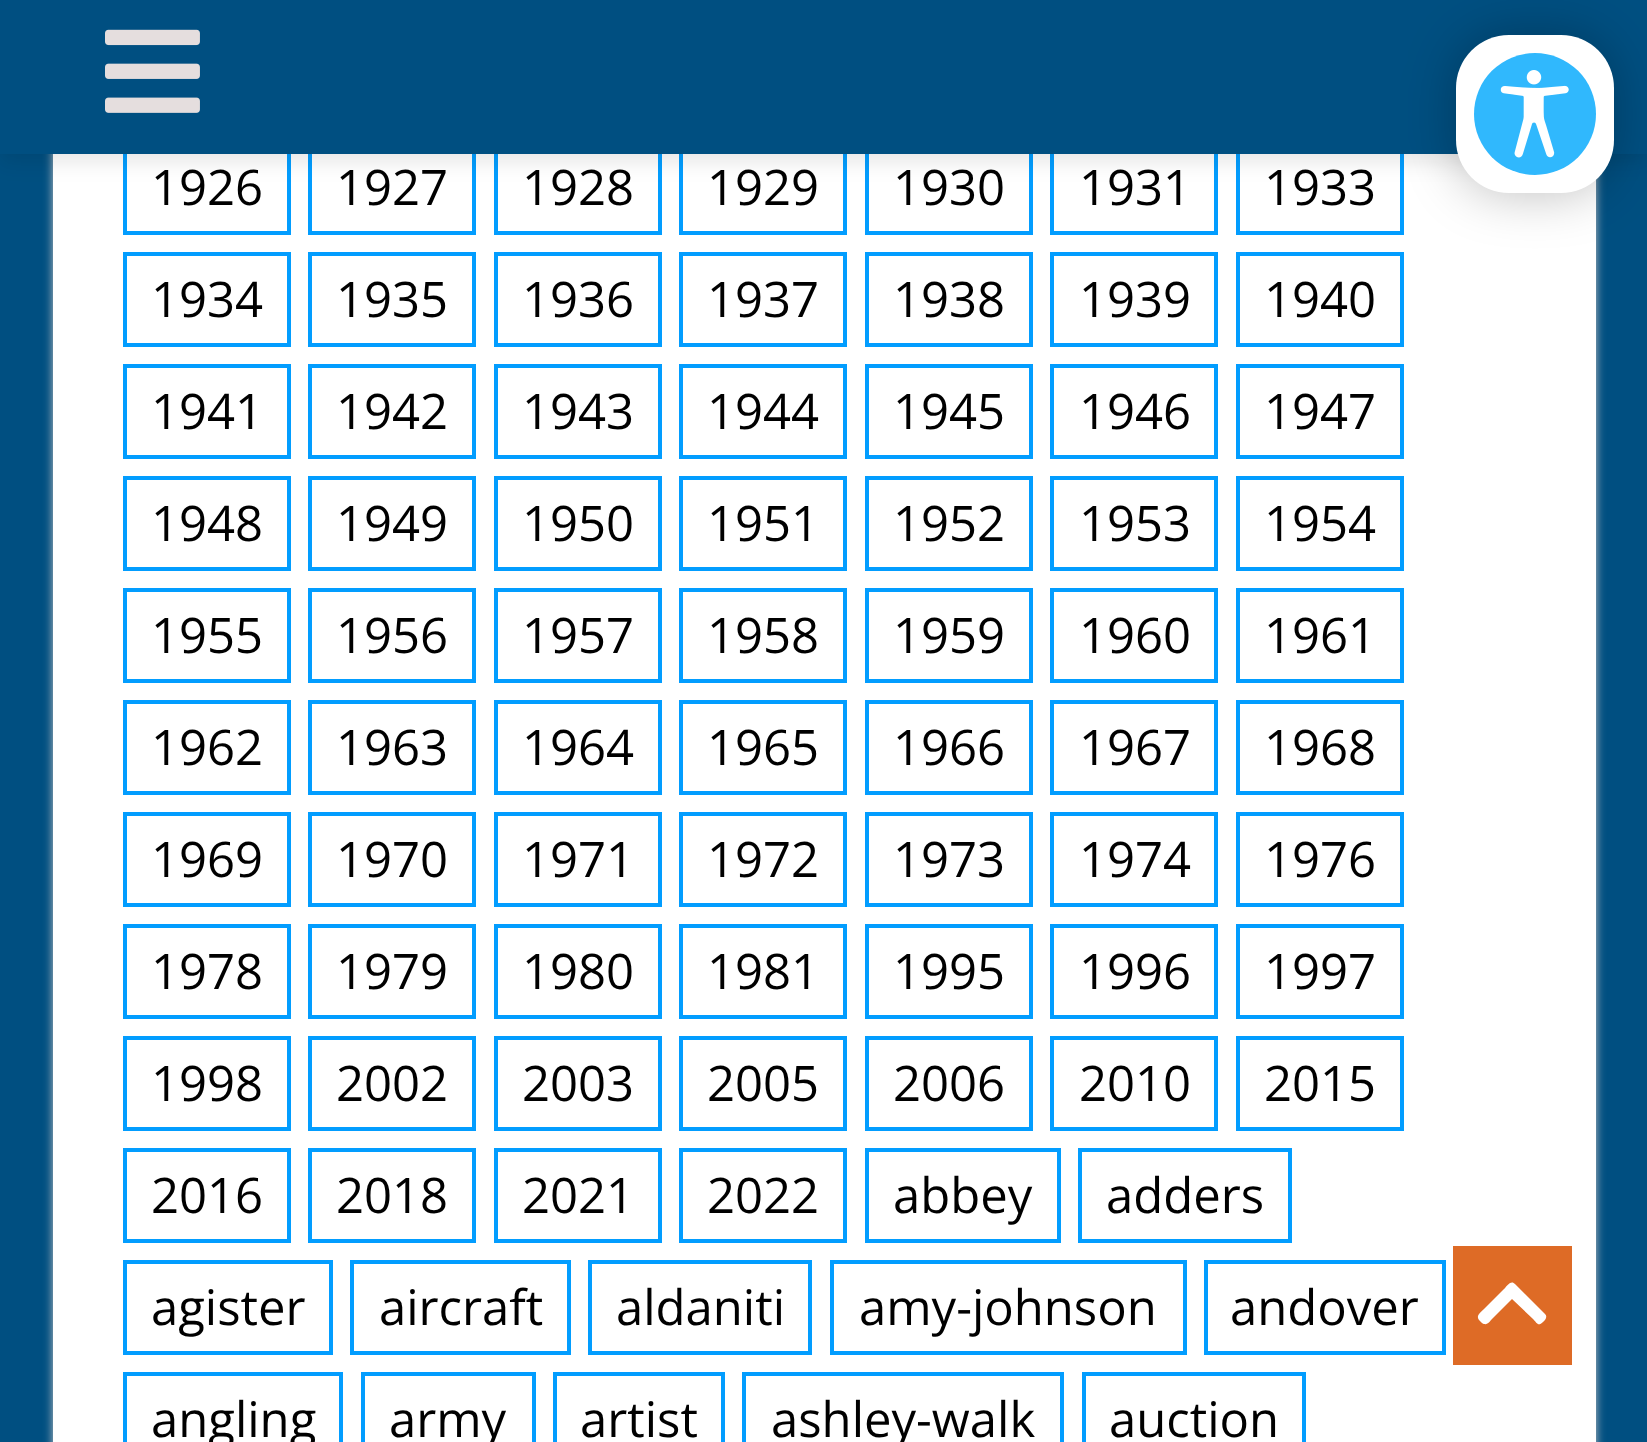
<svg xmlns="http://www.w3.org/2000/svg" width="1647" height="1442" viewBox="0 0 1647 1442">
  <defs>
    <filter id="blur1" x="-50%" y="-200%" width="200%" height="500%"><feGaussianBlur stdDeviation="5"/></filter>
    <filter id="blur2" x="-50%" y="-200%" width="200%" height="500%"><feGaussianBlur stdDeviation="10.5"/></filter>
    <filter id="blur3" x="-50%" y="-200%" width="200%" height="500%"><feGaussianBlur stdDeviation="26"/></filter>
  </defs>
  <rect width="100%" height="100%" fill="#004f81"/>
  <rect x="53" y="-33" width="1543" height="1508" rx="18" fill="#c3c2c3" filter="url(#blur1)"/>
  <rect x="53" y="154" width="1543" height="1288" fill="#ffffff"/>
  <rect x="125" y="142" width="164" height="91" fill="none" stroke="#029dff" stroke-width="4"/>
  <rect x="310" y="142" width="164" height="91" fill="none" stroke="#029dff" stroke-width="4"/>
  <rect x="496" y="142" width="164" height="91" fill="none" stroke="#029dff" stroke-width="4"/>
  <rect x="681" y="142" width="164" height="91" fill="none" stroke="#029dff" stroke-width="4"/>
  <rect x="867" y="142" width="164" height="91" fill="none" stroke="#029dff" stroke-width="4"/>
  <rect x="1052" y="142" width="164" height="91" fill="none" stroke="#029dff" stroke-width="4"/>
  <rect x="1238" y="142" width="164" height="91" fill="none" stroke="#029dff" stroke-width="4"/>
  <rect x="0" y="7" width="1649" height="154" fill="#000000" fill-opacity="0.1" filter="url(#blur2)"/>
  <rect x="0" y="0" width="1647" height="154" fill="#004f81"/>
  <rect x="1238" y="254" width="164" height="91" fill="none" stroke="#029dff" stroke-width="4"/>
  <rect x="1456" y="35" width="158" height="158" rx="53" fill="#000000" fill-opacity="0.26" filter="url(#blur3)"/>
  <rect x="1456" y="35" width="158" height="158" rx="53" fill="#ffffff"/>
  <circle cx="1535" cy="114" r="61" fill="#30b8fd"/>
  <image x="1500" y="70" width="69" height="88" href="img1.png"/>
  <image x="105" y="29" width="95" height="84" href="img2.png"/>
  <text x="151" y="205" font-family="Open Sans" font-size="49" fill="#000000">1926</text>
  <text x="336" y="205" font-family="Open Sans" font-size="49" fill="#000000">1927</text>
  <text x="522" y="205" font-family="Open Sans" font-size="49" fill="#000000">1928</text>
  <text x="707" y="205" font-family="Open Sans" font-size="49" fill="#000000">1929</text>
  <text x="893" y="205" font-family="Open Sans" font-size="49" fill="#000000">1930</text>
  <text x="1079" y="205" font-family="Open Sans" font-size="49" fill="#000000">1931</text>
  <text x="1264" y="205" font-family="Open Sans" font-size="49" fill="#000000">1933</text>
  <rect x="125" y="254" width="164" height="91" fill="none" stroke="#029dff" stroke-width="4"/>
  <text x="151" y="317" font-family="Open Sans" font-size="49" fill="#000000">1934</text>
  <rect x="310" y="254" width="164" height="91" fill="none" stroke="#029dff" stroke-width="4"/>
  <text x="336" y="317" font-family="Open Sans" font-size="49" fill="#000000">1935</text>
  <rect x="496" y="254" width="164" height="91" fill="none" stroke="#029dff" stroke-width="4"/>
  <text x="522" y="317" font-family="Open Sans" font-size="49" fill="#000000">1936</text>
  <rect x="681" y="254" width="164" height="91" fill="none" stroke="#029dff" stroke-width="4"/>
  <text x="707" y="317" font-family="Open Sans" font-size="49" fill="#000000">1937</text>
  <rect x="867" y="254" width="164" height="91" fill="none" stroke="#029dff" stroke-width="4"/>
  <text x="893" y="317" font-family="Open Sans" font-size="49" fill="#000000">1938</text>
  <rect x="1052" y="254" width="164" height="91" fill="none" stroke="#029dff" stroke-width="4"/>
  <text x="1079" y="317" font-family="Open Sans" font-size="49" fill="#000000">1939</text>
  <text x="1264" y="317" font-family="Open Sans" font-size="49" fill="#000000">1940</text>
  <rect x="125" y="366" width="164" height="91" fill="none" stroke="#029dff" stroke-width="4"/>
  <text x="151" y="429" font-family="Open Sans" font-size="49" fill="#000000">1941</text>
  <rect x="310" y="366" width="164" height="91" fill="none" stroke="#029dff" stroke-width="4"/>
  <text x="336" y="429" font-family="Open Sans" font-size="49" fill="#000000">1942</text>
  <rect x="496" y="366" width="164" height="91" fill="none" stroke="#029dff" stroke-width="4"/>
  <text x="522" y="429" font-family="Open Sans" font-size="49" fill="#000000">1943</text>
  <rect x="681" y="366" width="164" height="91" fill="none" stroke="#029dff" stroke-width="4"/>
  <text x="707" y="429" font-family="Open Sans" font-size="49" fill="#000000">1944</text>
  <rect x="867" y="366" width="164" height="91" fill="none" stroke="#029dff" stroke-width="4"/>
  <text x="893" y="429" font-family="Open Sans" font-size="49" fill="#000000">1945</text>
  <rect x="1052" y="366" width="164" height="91" fill="none" stroke="#029dff" stroke-width="4"/>
  <text x="1079" y="429" font-family="Open Sans" font-size="49" fill="#000000">1946</text>
  <rect x="1238" y="366" width="164" height="91" fill="none" stroke="#029dff" stroke-width="4"/>
  <text x="1264" y="429" font-family="Open Sans" font-size="49" fill="#000000">1947</text>
  <rect x="125" y="478" width="164" height="91" fill="none" stroke="#029dff" stroke-width="4"/>
  <text x="151" y="541" font-family="Open Sans" font-size="49" fill="#000000">1948</text>
  <rect x="310" y="478" width="164" height="91" fill="none" stroke="#029dff" stroke-width="4"/>
  <text x="336" y="541" font-family="Open Sans" font-size="49" fill="#000000">1949</text>
  <rect x="496" y="478" width="164" height="91" fill="none" stroke="#029dff" stroke-width="4"/>
  <text x="522" y="541" font-family="Open Sans" font-size="49" fill="#000000">1950</text>
  <rect x="681" y="478" width="164" height="91" fill="none" stroke="#029dff" stroke-width="4"/>
  <text x="707" y="541" font-family="Open Sans" font-size="49" fill="#000000">1951</text>
  <rect x="867" y="478" width="164" height="91" fill="none" stroke="#029dff" stroke-width="4"/>
  <text x="893" y="541" font-family="Open Sans" font-size="49" fill="#000000">1952</text>
  <rect x="1052" y="478" width="164" height="91" fill="none" stroke="#029dff" stroke-width="4"/>
  <text x="1079" y="541" font-family="Open Sans" font-size="49" fill="#000000">1953</text>
  <rect x="1238" y="478" width="164" height="91" fill="none" stroke="#029dff" stroke-width="4"/>
  <text x="1264" y="541" font-family="Open Sans" font-size="49" fill="#000000">1954</text>
  <rect x="125" y="590" width="164" height="91" fill="none" stroke="#029dff" stroke-width="4"/>
  <text x="151" y="653" font-family="Open Sans" font-size="49" fill="#000000">1955</text>
  <rect x="310" y="590" width="164" height="91" fill="none" stroke="#029dff" stroke-width="4"/>
  <text x="336" y="653" font-family="Open Sans" font-size="49" fill="#000000">1956</text>
  <rect x="496" y="590" width="164" height="91" fill="none" stroke="#029dff" stroke-width="4"/>
  <text x="522" y="653" font-family="Open Sans" font-size="49" fill="#000000">1957</text>
  <rect x="681" y="590" width="164" height="91" fill="none" stroke="#029dff" stroke-width="4"/>
  <text x="707" y="653" font-family="Open Sans" font-size="49" fill="#000000">1958</text>
  <rect x="867" y="590" width="164" height="91" fill="none" stroke="#029dff" stroke-width="4"/>
  <text x="893" y="653" font-family="Open Sans" font-size="49" fill="#000000">1959</text>
  <rect x="1052" y="590" width="164" height="91" fill="none" stroke="#029dff" stroke-width="4"/>
  <text x="1079" y="653" font-family="Open Sans" font-size="49" fill="#000000">1960</text>
  <rect x="1238" y="590" width="164" height="91" fill="none" stroke="#029dff" stroke-width="4"/>
  <text x="1264" y="653" font-family="Open Sans" font-size="49" fill="#000000">1961</text>
  <rect x="125" y="702" width="164" height="91" fill="none" stroke="#029dff" stroke-width="4"/>
  <text x="151" y="765" font-family="Open Sans" font-size="49" fill="#000000">1962</text>
  <rect x="310" y="702" width="164" height="91" fill="none" stroke="#029dff" stroke-width="4"/>
  <text x="336" y="765" font-family="Open Sans" font-size="49" fill="#000000">1963</text>
  <rect x="496" y="702" width="164" height="91" fill="none" stroke="#029dff" stroke-width="4"/>
  <text x="522" y="765" font-family="Open Sans" font-size="49" fill="#000000">1964</text>
  <rect x="681" y="702" width="164" height="91" fill="none" stroke="#029dff" stroke-width="4"/>
  <text x="707" y="765" font-family="Open Sans" font-size="49" fill="#000000">1965</text>
  <rect x="867" y="702" width="164" height="91" fill="none" stroke="#029dff" stroke-width="4"/>
  <text x="893" y="765" font-family="Open Sans" font-size="49" fill="#000000">1966</text>
  <rect x="1052" y="702" width="164" height="91" fill="none" stroke="#029dff" stroke-width="4"/>
  <text x="1079" y="765" font-family="Open Sans" font-size="49" fill="#000000">1967</text>
  <rect x="1238" y="702" width="164" height="91" fill="none" stroke="#029dff" stroke-width="4"/>
  <text x="1264" y="765" font-family="Open Sans" font-size="49" fill="#000000">1968</text>
  <rect x="125" y="814" width="164" height="91" fill="none" stroke="#029dff" stroke-width="4"/>
  <text x="151" y="877" font-family="Open Sans" font-size="49" fill="#000000">1969</text>
  <rect x="310" y="814" width="164" height="91" fill="none" stroke="#029dff" stroke-width="4"/>
  <text x="336" y="877" font-family="Open Sans" font-size="49" fill="#000000">1970</text>
  <rect x="496" y="814" width="164" height="91" fill="none" stroke="#029dff" stroke-width="4"/>
  <text x="522" y="877" font-family="Open Sans" font-size="49" fill="#000000">1971</text>
  <rect x="681" y="814" width="164" height="91" fill="none" stroke="#029dff" stroke-width="4"/>
  <text x="707" y="877" font-family="Open Sans" font-size="49" fill="#000000">1972</text>
  <rect x="867" y="814" width="164" height="91" fill="none" stroke="#029dff" stroke-width="4"/>
  <text x="893" y="877" font-family="Open Sans" font-size="49" fill="#000000">1973</text>
  <rect x="1052" y="814" width="164" height="91" fill="none" stroke="#029dff" stroke-width="4"/>
  <text x="1079" y="877" font-family="Open Sans" font-size="49" fill="#000000">1974</text>
  <rect x="1238" y="814" width="164" height="91" fill="none" stroke="#029dff" stroke-width="4"/>
  <text x="1264" y="877" font-family="Open Sans" font-size="49" fill="#000000">1976</text>
  <rect x="125" y="926" width="164" height="91" fill="none" stroke="#029dff" stroke-width="4"/>
  <text x="151" y="989" font-family="Open Sans" font-size="49" fill="#000000">1978</text>
  <rect x="310" y="926" width="164" height="91" fill="none" stroke="#029dff" stroke-width="4"/>
  <text x="336" y="989" font-family="Open Sans" font-size="49" fill="#000000">1979</text>
  <rect x="496" y="926" width="164" height="91" fill="none" stroke="#029dff" stroke-width="4"/>
  <text x="522" y="989" font-family="Open Sans" font-size="49" fill="#000000">1980</text>
  <rect x="681" y="926" width="164" height="91" fill="none" stroke="#029dff" stroke-width="4"/>
  <text x="707" y="989" font-family="Open Sans" font-size="49" fill="#000000">1981</text>
  <rect x="867" y="926" width="164" height="91" fill="none" stroke="#029dff" stroke-width="4"/>
  <text x="893" y="989" font-family="Open Sans" font-size="49" fill="#000000">1995</text>
  <rect x="1052" y="926" width="164" height="91" fill="none" stroke="#029dff" stroke-width="4"/>
  <text x="1079" y="989" font-family="Open Sans" font-size="49" fill="#000000">1996</text>
  <rect x="1238" y="926" width="164" height="91" fill="none" stroke="#029dff" stroke-width="4"/>
  <text x="1264" y="989" font-family="Open Sans" font-size="49" fill="#000000">1997</text>
  <rect x="125" y="1038" width="164" height="91" fill="none" stroke="#029dff" stroke-width="4"/>
  <text x="151" y="1101" font-family="Open Sans" font-size="49" fill="#000000">1998</text>
  <rect x="310" y="1038" width="164" height="91" fill="none" stroke="#029dff" stroke-width="4"/>
  <text x="336" y="1101" font-family="Open Sans" font-size="49" fill="#000000">2002</text>
  <rect x="496" y="1038" width="164" height="91" fill="none" stroke="#029dff" stroke-width="4"/>
  <text x="522" y="1101" font-family="Open Sans" font-size="49" fill="#000000">2003</text>
  <rect x="681" y="1038" width="164" height="91" fill="none" stroke="#029dff" stroke-width="4"/>
  <text x="707" y="1101" font-family="Open Sans" font-size="49" fill="#000000">2005</text>
  <rect x="867" y="1038" width="164" height="91" fill="none" stroke="#029dff" stroke-width="4"/>
  <text x="893" y="1101" font-family="Open Sans" font-size="49" fill="#000000">2006</text>
  <rect x="1052" y="1038" width="164" height="91" fill="none" stroke="#029dff" stroke-width="4"/>
  <text x="1079" y="1101" font-family="Open Sans" font-size="49" fill="#000000">2010</text>
  <rect x="1238" y="1038" width="164" height="91" fill="none" stroke="#029dff" stroke-width="4"/>
  <text x="1264" y="1101" font-family="Open Sans" font-size="49" fill="#000000">2015</text>
  <rect x="125" y="1150" width="164" height="91" fill="none" stroke="#029dff" stroke-width="4"/>
  <text x="151" y="1213" font-family="Open Sans" font-size="49" fill="#000000">2016</text>
  <rect x="310" y="1150" width="164" height="91" fill="none" stroke="#029dff" stroke-width="4"/>
  <text x="336" y="1213" font-family="Open Sans" font-size="49" fill="#000000">2018</text>
  <rect x="496" y="1150" width="164" height="91" fill="none" stroke="#029dff" stroke-width="4"/>
  <text x="522" y="1213" font-family="Open Sans" font-size="49" fill="#000000">2021</text>
  <rect x="681" y="1150" width="164" height="91" fill="none" stroke="#029dff" stroke-width="4"/>
  <text x="707" y="1213" font-family="Open Sans" font-size="49" fill="#000000">2022</text>
  <rect x="867" y="1150" width="192" height="91" fill="none" stroke="#029dff" stroke-width="4"/>
  <text x="893" y="1213" font-family="Open Sans" font-size="49" fill="#000000">abbey</text>
  <rect x="1080" y="1150" width="210" height="91" fill="none" stroke="#029dff" stroke-width="4"/>
  <text x="1106" y="1213" font-family="Open Sans" font-size="49" fill="#000000">adders</text>
  <rect x="125" y="1262" width="206" height="91" fill="none" stroke="#029dff" stroke-width="4"/>
  <text x="151" y="1325" font-family="Open Sans" font-size="49" fill="#000000">agister</text>
  <rect x="352" y="1262" width="217" height="91" fill="none" stroke="#029dff" stroke-width="4"/>
  <text x="379" y="1325" font-family="Open Sans" font-size="49" fill="#000000">aircraft</text>
  <rect x="590" y="1262" width="220" height="91" fill="none" stroke="#029dff" stroke-width="4"/>
  <text x="616" y="1325" font-family="Open Sans" font-size="49" fill="#000000">aldaniti</text>
  <rect x="832" y="1262" width="353" height="91" fill="none" stroke="#029dff" stroke-width="4"/>
  <text x="859" y="1325" font-family="Open Sans" font-size="49" fill="#000000">amy-johnson</text>
  <rect x="1206" y="1262" width="238" height="91" fill="none" stroke="#029dff" stroke-width="4"/>
  <text x="1230" y="1325" font-family="Open Sans" font-size="49" fill="#000000">andover</text>
  <rect x="125" y="1374" width="216" height="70" fill="none" stroke="#029dff" stroke-width="4"/>
  <text x="151" y="1437" font-family="Open Sans" font-size="49" fill="#000000">angling</text>
  <rect x="363" y="1374" width="171" height="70" fill="none" stroke="#029dff" stroke-width="4"/>
  <text x="389" y="1437" font-family="Open Sans" font-size="49" fill="#000000">army</text>
  <rect x="555" y="1374" width="168" height="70" fill="none" stroke="#029dff" stroke-width="4"/>
  <text x="580" y="1437" font-family="Open Sans" font-size="49" fill="#000000">artist</text>
  <rect x="744" y="1374" width="318" height="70" fill="none" stroke="#029dff" stroke-width="4"/>
  <text x="771" y="1437" font-family="Open Sans" font-size="49" fill="#000000">ashley-walk</text>
  <rect x="1084" y="1374" width="220" height="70" fill="none" stroke="#029dff" stroke-width="4"/>
  <text x="1109" y="1437" font-family="Open Sans" font-size="49" fill="#000000">auction</text>
  <rect x="1453" y="1246" width="119" height="119" fill="#de6b26"/>
  <path d="M1515 1284L1545 1314C1548 1317 1545 1320 1543 1322C1538 1327 1537 1323 1533 1319L1512 1299L1492 1319C1490 1321 1488 1325 1484 1324C1483 1324 1481 1322 1480 1321C1475 1316 1480 1313 1484 1309L1504 1289C1506 1287 1511 1279 1515 1284Z" fill="#ffffff"/>
</svg>
